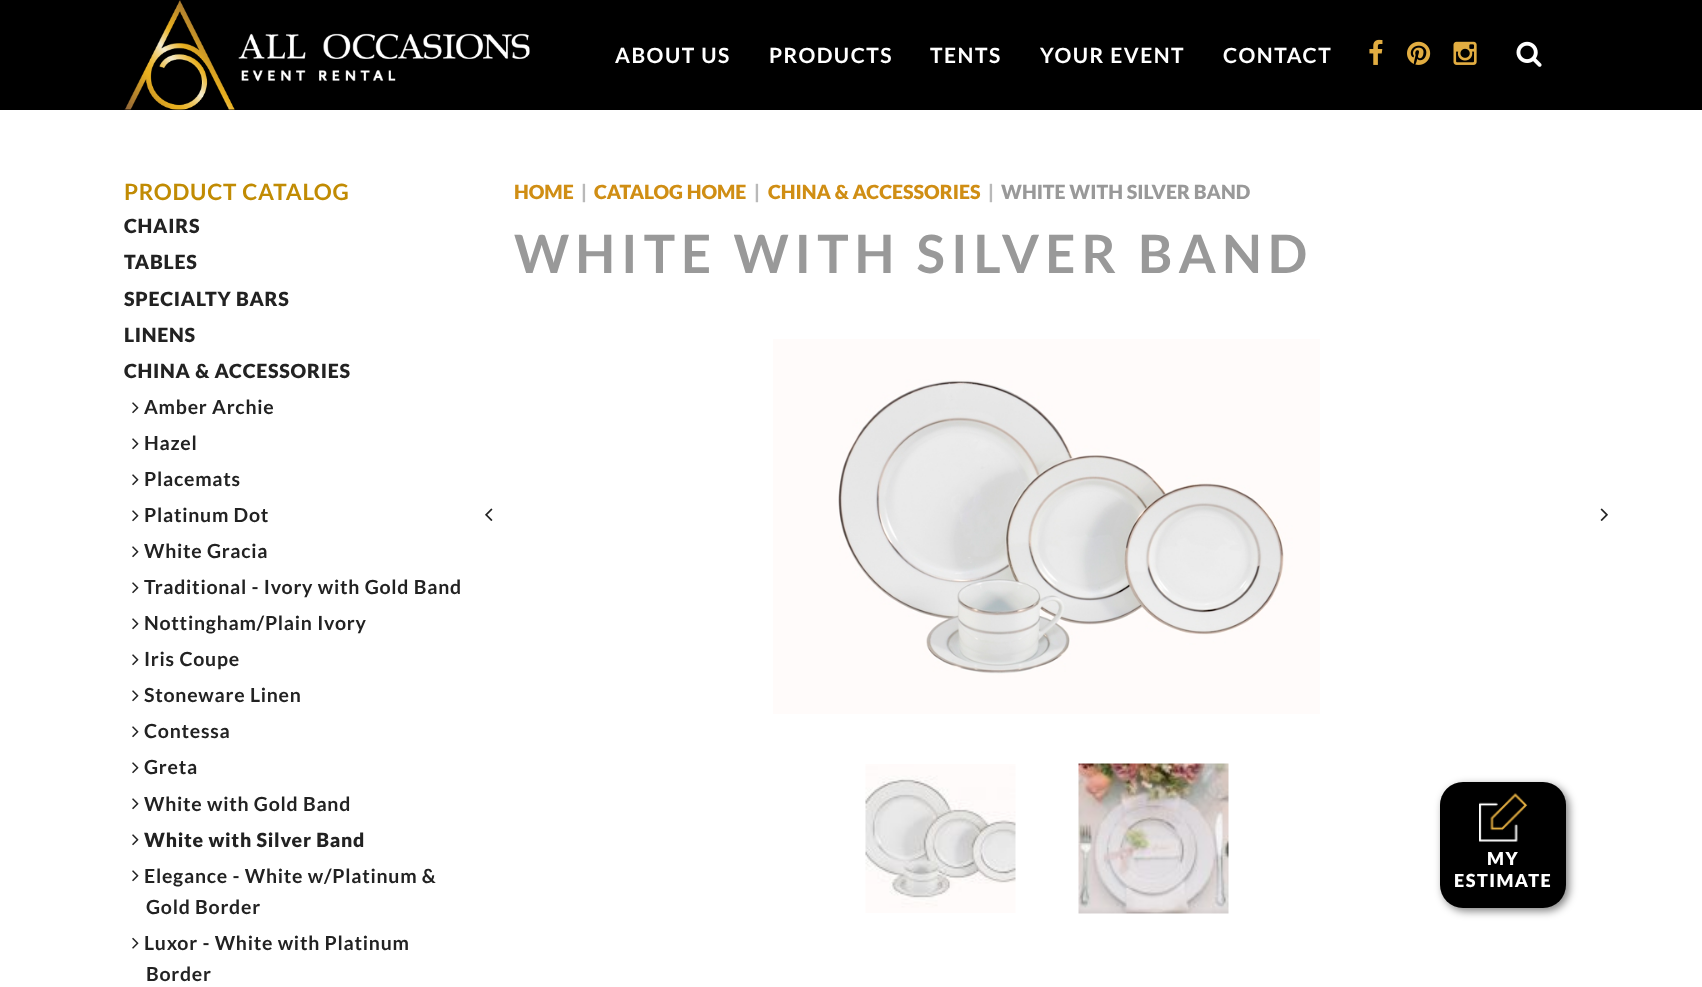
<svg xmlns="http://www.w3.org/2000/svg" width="1702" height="987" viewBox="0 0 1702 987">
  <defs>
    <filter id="blur1" x="-50%" y="-200%" width="200%" height="500%"><feGaussianBlur stdDeviation="4.5"/></filter>
  </defs>
  <rect width="100%" height="100%" fill="#ffffff"/>
  <rect x="0" y="0" width="1702" height="110" fill="#000000"/>
  <image x="124" y="0" width="406" height="110" href="img1.png"/>
  <text x="615" y="63" font-family="Lato" font-size="21" font-weight="bold" letter-spacing="1.5" fill="#ffffff">ABOUT US</text>
  <text x="769" y="63" font-family="Lato" font-size="21" font-weight="bold" letter-spacing="1.5" fill="#ffffff">PRODUCTS</text>
  <text x="930" y="63" font-family="Lato" font-size="21" font-weight="bold" letter-spacing="1.5" fill="#ffffff">TENTS</text>
  <text x="1040" y="63" font-family="Lato" font-size="21" font-weight="bold" letter-spacing="1.5" fill="#ffffff">YOUR EVENT</text>
  <text x="1223" y="63" font-family="Lato" font-size="21" font-weight="bold" letter-spacing="1.5" fill="#ffffff">CONTACT</text>
  <image x="1369" y="39" width="14" height="26" href="img2.png"/>
  <image x="1407" y="41" width="24" height="24" href="img3.png"/>
  <image x="1453" y="41" width="24" height="24" href="img4.png"/>
  <image x="1516" y="41" width="26" height="26" href="img5.png"/>
  <text x="124" y="200" font-family="Lato" font-size="22.5" font-weight="bold" letter-spacing="0.75" fill="#c18b03">PRODUCT CATALOG</text>
  <text x="124" y="233" font-family="Lato" font-size="19.5" font-weight="900" letter-spacing="0.75" fill="#222222">CHAIRS</text>
  <text x="124" y="269" font-family="Lato" font-size="19.5" font-weight="900" letter-spacing="0.75" fill="#222222">TABLES</text>
  <text x="124" y="306" font-family="Lato" font-size="19.5" font-weight="900" letter-spacing="0.75" fill="#222222">SPECIALTY BARS</text>
  <text x="124" y="342" font-family="Lato" font-size="19.5" font-weight="900" letter-spacing="0.75" fill="#222222">LINENS</text>
  <text x="124" y="378" font-family="Lato" font-size="19.5" font-weight="900" letter-spacing="0.75" fill="#222222">CHINA &amp; ACCESSORIES</text>
  <image x="132" y="402" width="7" height="12" href="img6.png"/>
  <text x="144" y="414" font-family="Lato" font-size="19.5" font-weight="bold" letter-spacing="0.75" fill="#222222">Amber Archie</text>
  <image x="132" y="438" width="7" height="12" href="img6.png"/>
  <text x="144" y="450" font-family="Lato" font-size="19.5" font-weight="bold" letter-spacing="0.75" fill="#222222">Hazel</text>
  <image x="132" y="474" width="7" height="12" href="img6.png"/>
  <text x="144" y="486" font-family="Lato" font-size="19.5" font-weight="bold" letter-spacing="0.75" fill="#222222">Placemats</text>
  <image x="132" y="510" width="7" height="12" href="img6.png"/>
  <text x="144" y="522" font-family="Lato" font-size="19.5" font-weight="bold" letter-spacing="0.75" fill="#222222">Platinum Dot</text>
  <image x="132" y="546" width="7" height="12" href="img6.png"/>
  <text x="144" y="558" font-family="Lato" font-size="19.5" font-weight="bold" letter-spacing="0.75" fill="#222222">White Gracia</text>
  <image x="132" y="582" width="7" height="12" href="img6.png"/>
  <text x="144" y="594" font-family="Lato" font-size="19.5" font-weight="bold" letter-spacing="0.75" fill="#222222">Traditional - Ivory with Gold Band</text>
  <image x="132" y="618" width="7" height="12" href="img6.png"/>
  <text x="144" y="630" font-family="Lato" font-size="19.5" font-weight="bold" letter-spacing="0.75" fill="#222222">Nottingham/Plain Ivory</text>
  <image x="132" y="654" width="7" height="12" href="img6.png"/>
  <text x="144" y="666" font-family="Lato" font-size="19.5" font-weight="bold" letter-spacing="0.75" fill="#222222">Iris Coupe</text>
  <image x="132" y="690" width="7" height="12" href="img6.png"/>
  <text x="144" y="702" font-family="Lato" font-size="19.5" font-weight="bold" letter-spacing="0.75" fill="#222222">Stoneware Linen</text>
  <image x="132" y="726" width="7" height="12" href="img6.png"/>
  <text x="144" y="738" font-family="Lato" font-size="19.5" font-weight="bold" letter-spacing="0.75" fill="#222222">Contessa</text>
  <image x="132" y="762" width="7" height="12" href="img6.png"/>
  <text x="144" y="774" font-family="Lato" font-size="19.5" font-weight="bold" letter-spacing="0.75" fill="#222222">Greta</text>
  <image x="132" y="798" width="7" height="12" href="img6.png"/>
  <text x="144" y="811" font-family="Lato" font-size="19.5" font-weight="bold" letter-spacing="0.75" fill="#222222">White with Gold Band</text>
  <image x="132" y="834" width="7" height="12" href="img6.png"/>
  <text x="144" y="847" font-family="Lato" font-size="19.5" font-weight="900" letter-spacing="0.75" fill="#222222">White with Silver Band</text>
  <image x="132" y="870" width="7" height="12" href="img6.png"/>
  <text x="144" y="883" font-family="Lato" font-size="19.5" font-weight="bold" letter-spacing="0.75" fill="#222222">Elegance - White w/Platinum &amp;</text>
  <text x="146" y="914" font-family="Lato" font-size="19.5" font-weight="bold" letter-spacing="0.75" fill="#222222">Gold Border</text>
  <image x="132" y="937" width="7" height="12" href="img7.png"/>
  <text x="144" y="950" font-family="Lato" font-size="19.5" font-weight="bold" letter-spacing="0.75" fill="#222222">Luxor - White with Platinum</text>
  <text x="146" y="981" font-family="Lato" font-size="19.5" font-weight="bold" letter-spacing="0.75" fill="#222222">Border</text>
  <text x="514" y="199" font-family="Lato" font-size="19.5" font-weight="900" fill="#d08e14">HOME</text>
  <text x="581" y="199" font-family="Lato" font-size="19.5" font-weight="900" fill="#b9b9b9">|</text>
  <text x="594" y="199" font-family="Lato" font-size="19.5" font-weight="900" fill="#d08e14">CATALOG HOME</text>
  <text x="754" y="199" font-family="Lato" font-size="19.5" font-weight="900" fill="#b9b9b9">|</text>
  <text x="768" y="199" font-family="Lato" font-size="19.5" font-weight="900" fill="#d08e14">CHINA &amp; ACCESSORIES</text>
  <text x="988" y="199" font-family="Lato" font-size="19.5" font-weight="900" fill="#b9b9b9">|</text>
  <text x="1001" y="199" font-family="Lato" font-size="19.5" font-weight="900" fill="#999999">WHITE WITH SILVER BAND</text>
  <text x="514" y="273" font-family="Lato" font-size="52.75" font-weight="bold" letter-spacing="6" fill="#999999">WHITE WITH SILVER BAND</text>
  <image x="485" y="508" width="8" height="13" href="img8.png"/>
  <image x="773" y="339" width="547" height="375" href="img9.png"/>
  <image x="1600" y="508" width="8" height="13" href="img10.png"/>
  <image x="865" y="764" width="151" height="149" href="img11.png"/>
  <image x="1078" y="763" width="151" height="151" href="img12.png"/>
  <rect x="1443" y="785" width="126" height="126" rx="23" fill="#000000" fill-opacity="0.5" filter="url(#blur1)"/>
  <rect x="1440" y="782" width="126" height="126" rx="23" fill="#000000"/>
  <image x="1479" y="793" width="49" height="49" href="img13.png"/>
  <text x="1487" y="865" font-family="Lato" font-size="18" font-weight="900" letter-spacing="1.5" fill="#ffffff">MY</text>
  <text x="1454" y="887" font-family="Lato" font-size="18" font-weight="900" letter-spacing="1.5" fill="#ffffff">ESTIMATE</text>
</svg>
